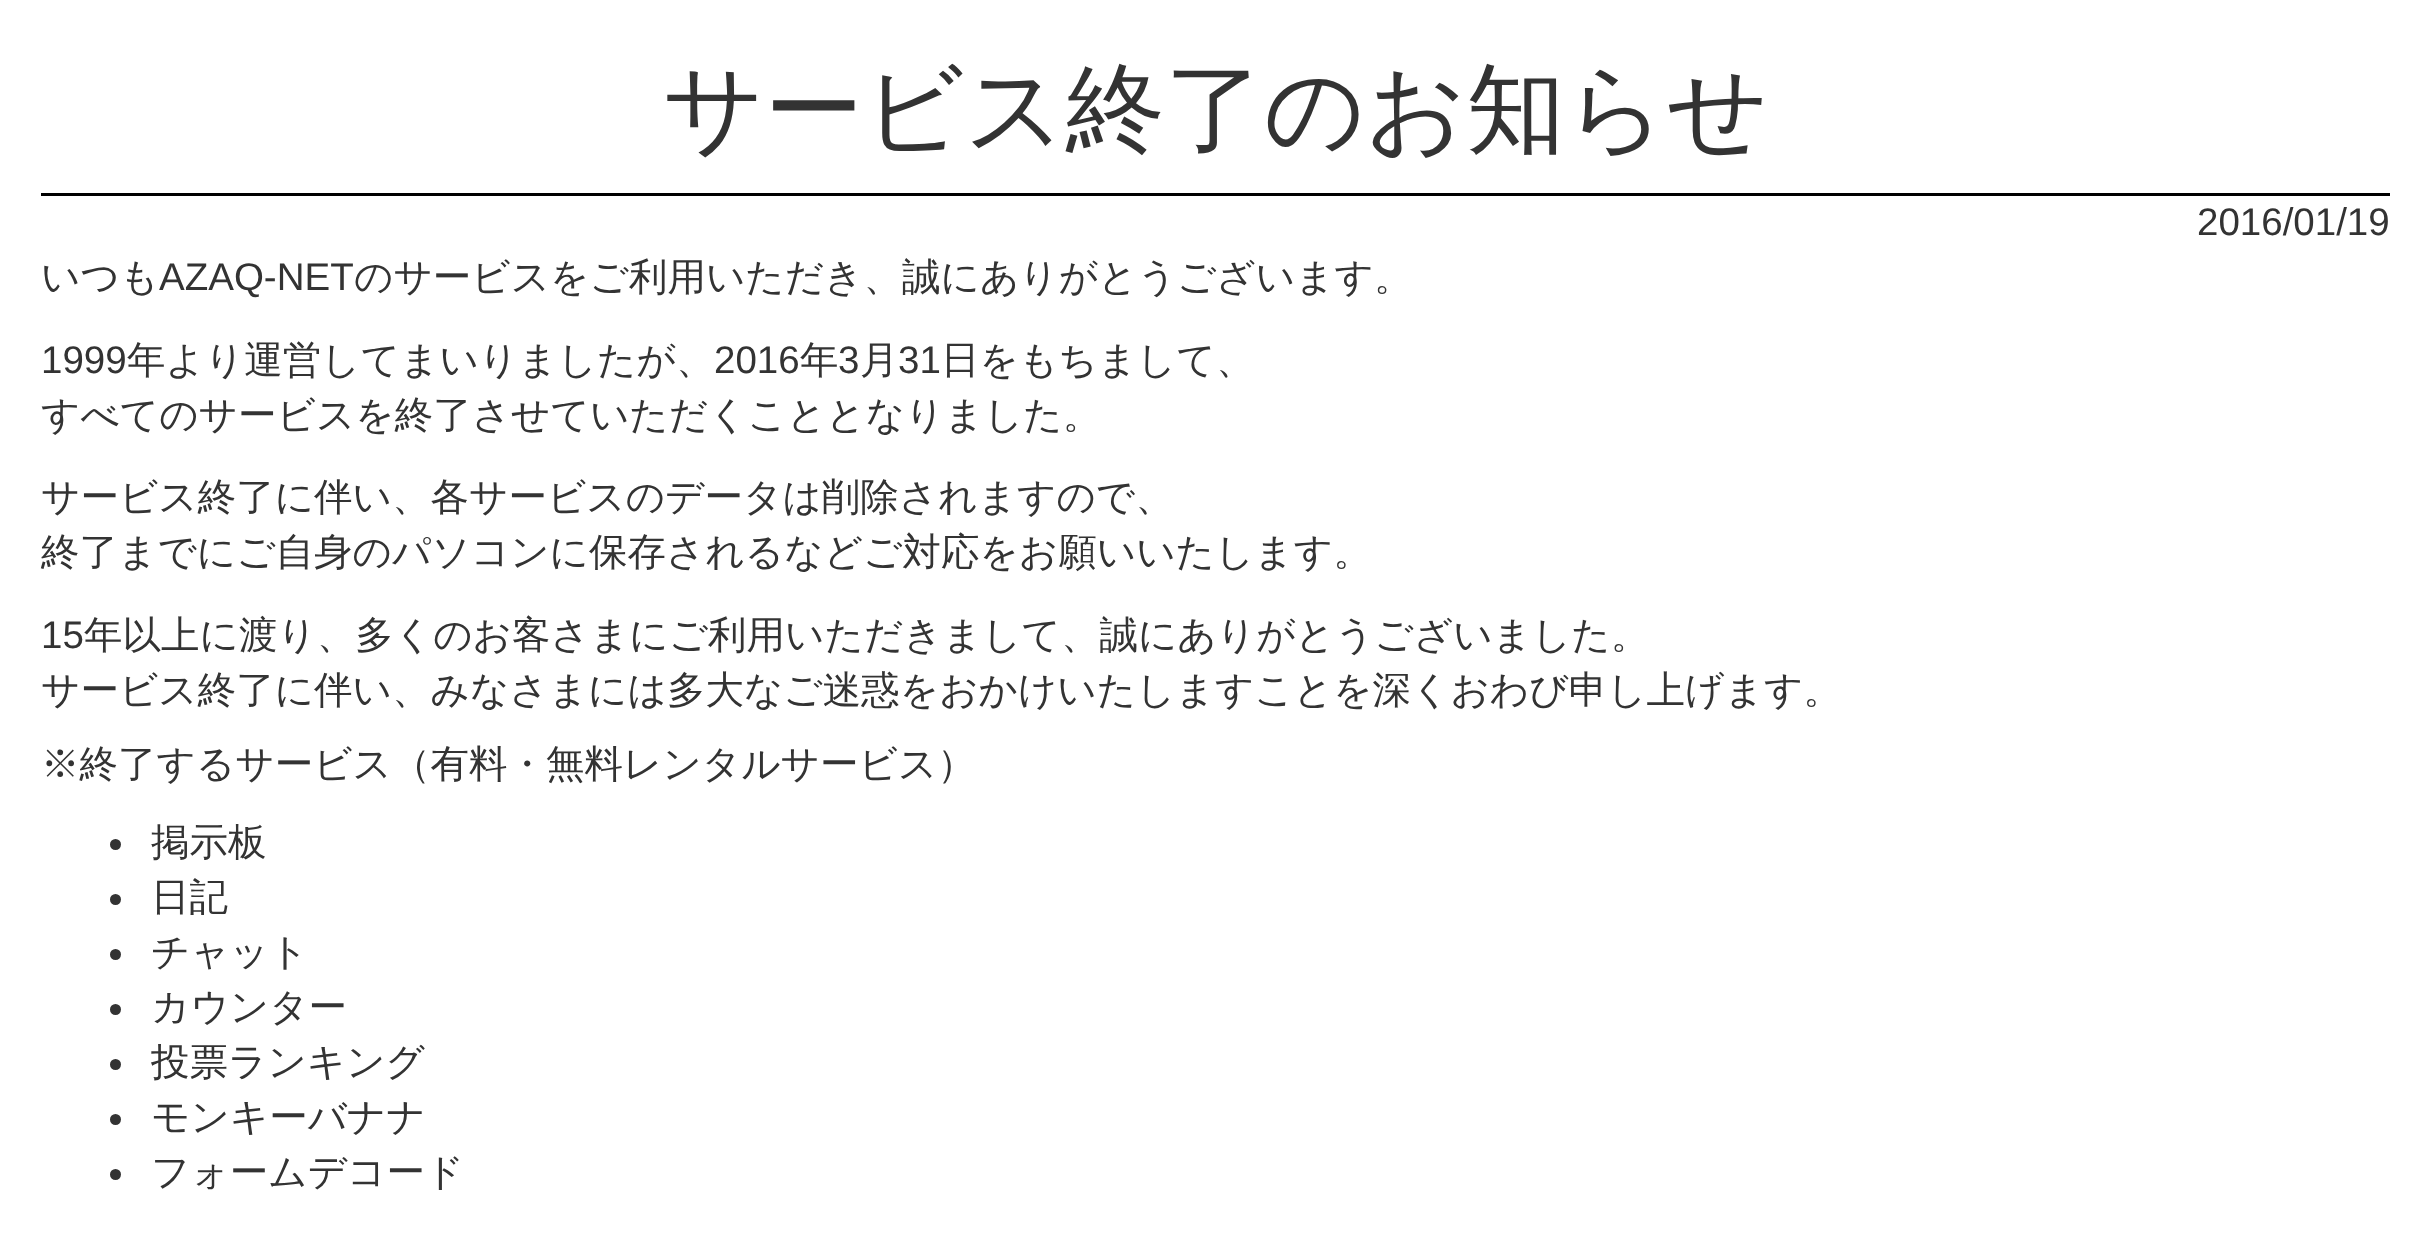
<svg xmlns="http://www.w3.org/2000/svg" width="2430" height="1258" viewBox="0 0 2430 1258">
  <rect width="100%" height="100%" fill="#ffffff"/>
  <rect x="41" y="193" width="2349" height="3" fill="#000000"/>
  <text x="663" y="143" font-family="WenQuanYi Zen Hei" font-size="99" font-weight="500" fill="#333333">サービス終了のお知らせ</text>
  <text x="2197" y="235" font-family="Liberation Sans" font-size="38.5" fill="#333333">2016/01/19</text>
  <text x="41" y="290" font-family="WenQuanYi Zen Hei" font-size="38.5" font-weight="500" fill="#333333">いつも</text>
  <text x="159" y="290" font-family="Liberation Sans" font-size="38.5" fill="#333333">AZAQ-NET</text>
  <text x="354" y="290" font-family="WenQuanYi Zen Hei" font-size="38.5" font-weight="500" fill="#333333">のサービスをご利用いただき、誠にありがとうございます。</text>
  <text x="41" y="373" font-family="Liberation Sans" font-size="38.5" fill="#333333">1999</text>
  <text x="127" y="373" font-family="WenQuanYi Zen Hei" font-size="38.5" font-weight="500" fill="#333333">年より運営してまいりましたが、</text>
  <text x="714" y="373" font-family="Liberation Sans" font-size="38.5" fill="#333333">2016</text>
  <text x="800" y="373" font-family="WenQuanYi Zen Hei" font-size="38.5" font-weight="500" fill="#333333">年</text>
  <text x="838" y="373" font-family="Liberation Sans" font-size="38.5" fill="#333333">3</text>
  <text x="860" y="373" font-family="WenQuanYi Zen Hei" font-size="38.5" font-weight="500" fill="#333333">月</text>
  <text x="898" y="373" font-family="Liberation Sans" font-size="38.5" fill="#333333">31</text>
  <text x="941" y="373" font-family="WenQuanYi Zen Hei" font-size="38.5" font-weight="500" fill="#333333">日をもちまして、</text>
  <text x="41" y="428" font-family="WenQuanYi Zen Hei" font-size="38.5" font-weight="500" fill="#333333">すべてのサービスを終了させていただくこととなりました。</text>
  <text x="41" y="510" font-family="WenQuanYi Zen Hei" font-size="38.5" font-weight="500" fill="#333333">サービス終了に伴い、各サービスのデータは削除されますので、</text>
  <text x="41" y="565" font-family="WenQuanYi Zen Hei" font-size="38.5" font-weight="500" fill="#333333">終了までにご自身のパソコンに保存されるなどご対応をお願いいたします。</text>
  <text x="41" y="648" font-family="Liberation Sans" font-size="38.5" fill="#333333">15</text>
  <text x="84" y="648" font-family="WenQuanYi Zen Hei" font-size="38.5" font-weight="500" fill="#333333">年以上に渡り、多くのお客さまにご利用いただきまして、誠にありがとうございました。</text>
  <text x="41" y="703" font-family="WenQuanYi Zen Hei" font-size="38.5" font-weight="500" fill="#333333">サービス終了に伴い、みなさまには多大なご迷惑をおかけいたしますことを深くおわび申し上げます。</text>
  <text x="41" y="777" font-family="WenQuanYi Zen Hei" font-size="38.5" font-weight="500" fill="#333333">※終了するサービス（有料・無料レンタルサービス）</text>
  <circle cx="115.5" cy="844.5" r="5.5" fill="#333333"/>
  <text x="151" y="855" font-family="WenQuanYi Zen Hei" font-size="38.5" font-weight="500" fill="#333333">掲示板</text>
  <circle cx="115.5" cy="899.5" r="5.5" fill="#333333"/>
  <text x="151" y="910" font-family="WenQuanYi Zen Hei" font-size="38.5" font-weight="500" fill="#333333">日記</text>
  <circle cx="115.5" cy="954.5" r="5.5" fill="#333333"/>
  <text x="151" y="965" font-family="WenQuanYi Zen Hei" font-size="38.5" font-weight="500" fill="#333333">チャット</text>
  <circle cx="115.5" cy="1009.5" r="5.5" fill="#333333"/>
  <text x="151" y="1020" font-family="WenQuanYi Zen Hei" font-size="38.5" font-weight="500" fill="#333333">カウンター</text>
  <circle cx="115.5" cy="1064.5" r="5.5" fill="#333333"/>
  <text x="151" y="1075" font-family="WenQuanYi Zen Hei" font-size="38.5" font-weight="500" fill="#333333">投票ランキング</text>
  <circle cx="115.5" cy="1119.5" r="5.5" fill="#333333"/>
  <text x="151" y="1130" font-family="WenQuanYi Zen Hei" font-size="38.5" font-weight="500" fill="#333333">モンキーバナナ</text>
  <circle cx="115.5" cy="1174.5" r="5.5" fill="#333333"/>
  <text x="151" y="1185" font-family="WenQuanYi Zen Hei" font-size="38.5" font-weight="500" fill="#333333">フォームデコード</text>
</svg>
